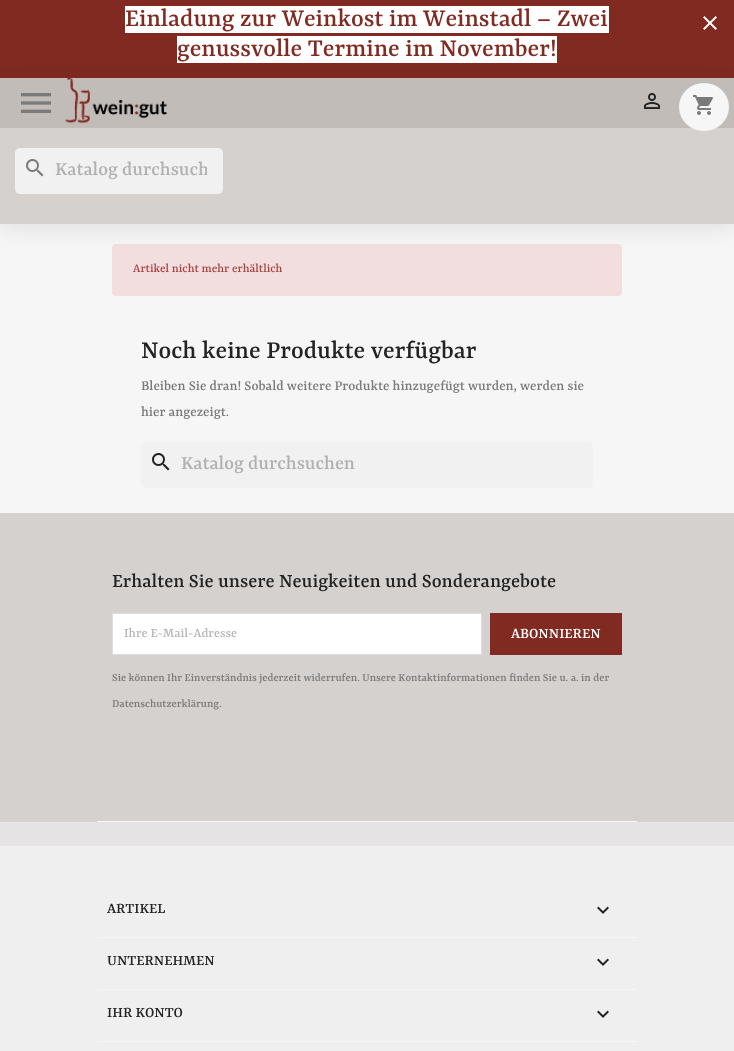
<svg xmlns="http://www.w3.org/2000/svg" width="734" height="1051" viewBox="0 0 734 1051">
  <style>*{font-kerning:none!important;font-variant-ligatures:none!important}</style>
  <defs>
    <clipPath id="clip1"><path d="M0 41H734V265H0ZM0 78H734V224H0Z" clip-rule="evenodd"/></clipPath>
    <filter id="blur1" x="-50%" y="-200%" width="200%" height="500%"><feGaussianBlur stdDeviation="12.5"/></filter>
    <clipPath id="clip2"><rect x="55" y="158" width="152" height="26"/></clipPath>
  </defs>
  <rect width="100%" height="100%" fill="#d5d1cf"/>
  <rect x="0" y="0" width="734" height="78" fill="#812a21"/>
  <rect x="125" y="6" width="484" height="27" fill="#ffffff"/>
  <text x="125" y="26" font-family="Rasa" font-size="27" font-weight="500" fill="#812a21">Einladung zur Weinkost im Weinstadl – Zwei</text>
  <rect x="177" y="36" width="380" height="27" fill="#ffffff"/>
  <text x="177" y="56" font-family="Rasa" font-size="27" font-weight="500" fill="#812a21">genussvolle Termine im November!</text>
  <image x="703" y="16" width="14" height="14" href="img1.png"/>
  <rect x="0" y="224" width="734" height="289" fill="#f6f6f6"/>
  <rect x="112" y="244" width="510" height="52" rx="4" fill="#f2dede"/>
  <g clip-path="url(#clip1)">
    <rect x="0" y="80" width="734" height="146" fill="#000000" fill-opacity="0.11" filter="url(#blur1)"/>
  </g>
  <rect x="0" y="78" width="734" height="50" fill="#c2bcb9"/>
  <image x="21" y="93" width="30" height="20" href="img2.png"/>
  <image x="65" y="78" width="102" height="46" href="img3.png"/>
  <image x="644" y="93" width="16" height="16" href="img4.png"/>
  <ellipse cx="704" cy="107" rx="25" ry="24" fill="#f6f6f6"/>
  <image x="693" y="95" width="20" height="20" href="img5.png"/>
  <rect x="15" y="148" width="208" height="46" rx="5" fill="#f1f1f1"/>
  <image x="26" y="159" width="18" height="18" href="img6.png"/>
  <g clip-path="url(#clip2)">
    <text x="55" y="175" font-family="Rasa" font-size="20.75" font-weight="500" fill="#b1b1b1">Katalog durchsuch</text>
  </g>
  <text x="133" y="272" font-family="Rasa" font-size="13" font-weight="500" fill="#a94442">Artikel nicht mehr erhältlich</text>
  <text x="141" y="358" font-family="Rasa" font-size="27" font-weight="500" fill="#232323">Noch keine Produkte verfügbar</text>
  <text x="141" y="390" font-family="Rasa" font-size="15" font-weight="500" fill="#7a7a7a">Bleiben Sie dran! Sobald weitere Produkte hinzugefügt wurden, werden sie</text>
  <text x="141" y="416" font-family="Rasa" font-size="15" font-weight="500" fill="#7a7a7a">hier angezeigt.</text>
  <rect x="141" y="442" width="452" height="46" rx="5" fill="#f1f1f1"/>
  <image x="152" y="453" width="18" height="18" href="img7.png"/>
  <text x="181" y="469" font-family="Rasa" font-size="20.75" font-weight="500" fill="#b1b1b1">Katalog durchsuchen</text>
  <rect x="97" y="821" width="540" height="1" fill="#f6f6f6"/>
  <text x="112" y="587" font-family="Rasa" font-size="21" font-weight="500" fill="#232323">Erhalten Sie unsere Neuigkeiten und Sonderangebote</text>
  <rect x="112.5" y="613.5" width="369" height="41" fill="#ffffff" stroke="#dddddd"/>
  <text x="124" y="637" font-family="Rasa" font-size="14" font-weight="500" fill="#b7b7b7">Ihre E-Mail-Adresse</text>
  <rect x="490" y="613" width="132" height="42" fill="#812a21"/>
  <text x="511" y="638" font-family="Rasa" font-size="16" font-weight="500" fill="#ffffff">ABONNIEREN</text>
  <text x="112" y="681" font-family="Rasa" font-size="12" font-weight="500" fill="#7a7a7a">Sie können Ihr Einverständnis jederzeit widerrufen. Unsere Kontaktinformationen finden Sie u. a. in der</text>
  <text x="112" y="707" font-family="Rasa" font-size="12" font-weight="500" fill="#7a7a7a">Datenschutzerklärung.</text>
  <rect x="0" y="822" width="734" height="24" fill="#e5e3e3"/>
  <rect x="0" y="846" width="734" height="205" fill="#efefef"/>
  <rect x="97" y="937" width="540" height="1" fill="#f6f6f6"/>
  <text x="107" y="913" font-family="Rasa" font-size="16" font-weight="500" fill="#232323">ARTIKEL</text>
  <image x="597" y="906" width="12" height="8" href="img8.png"/>
  <rect x="97" y="989" width="540" height="1" fill="#f6f6f6"/>
  <text x="107" y="965" font-family="Rasa" font-size="16" font-weight="500" fill="#232323">UNTERNEHMEN</text>
  <image x="597" y="958" width="12" height="8" href="img8.png"/>
  <rect x="97" y="1041" width="540" height="1" fill="#f6f6f6"/>
  <text x="107" y="1017" font-family="Rasa" font-size="16" font-weight="500" fill="#232323">IHR KONTO</text>
  <image x="597" y="1010" width="12" height="8" href="img8.png"/>
</svg>
